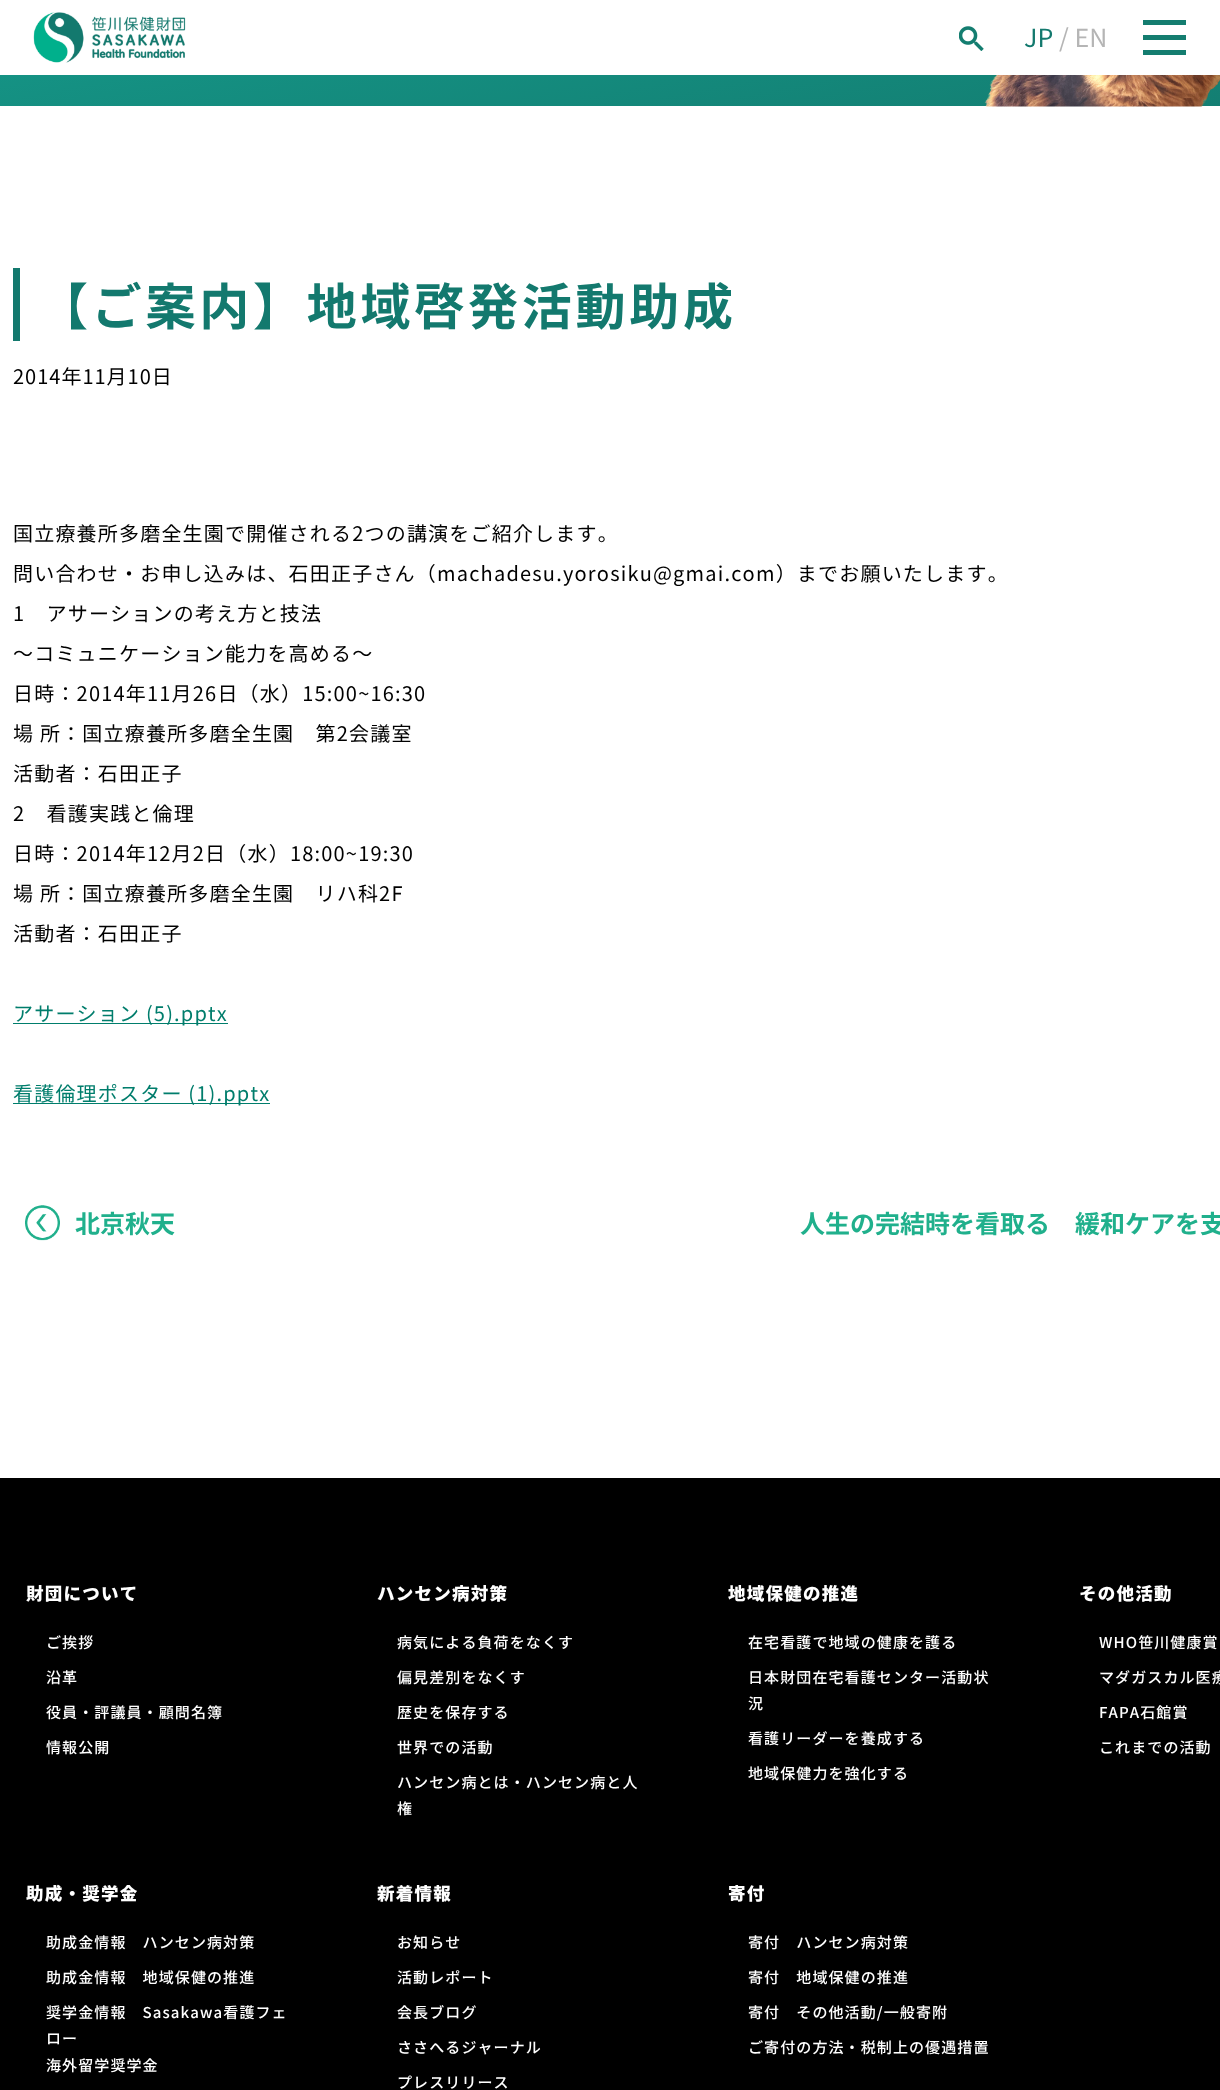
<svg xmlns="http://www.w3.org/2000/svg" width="1220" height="2090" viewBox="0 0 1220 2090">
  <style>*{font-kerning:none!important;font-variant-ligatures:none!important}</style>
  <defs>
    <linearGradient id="g1" gradientUnits="userSpaceOnUse" x1="652" y1="-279" x2="748" y2="229"><stop offset="0" stop-color="#16a393"/><stop offset="1" stop-color="#137c70"/></linearGradient>
  </defs>
  <rect width="100%" height="100%" fill="#ffffff"/>
  <image x="33" y="12" width="153" height="51" href="img1.png"/>
  <image x="959" y="26" width="25" height="25" href="img2.png"/>
  <text x="1024" y="47" font-family="Noto Sans JP" font-size="25" fill="#13796e">JP</text>
  <text x="1059" y="47" font-family="Noto Sans JP" font-size="25" fill="#b5b5b5">/ EN</text>
  <rect x="1143" y="35" width="43" height="5" fill="#147d70"/>
  <rect x="1143" y="20" width="43" height="5" fill="#147d70"/>
  <rect x="1143" y="50" width="43" height="5" fill="#147d70"/>
  <rect x="0" y="75" width="1220" height="31" fill="url(#g1)"/>
  <image x="984" y="75" width="236" height="32" href="img3.png"/>
  <rect x="13" y="268" width="7" height="73" fill="#13796e"/>
  <text x="38" y="325" font-family="Noto Sans JP" font-size="50" font-weight="bold" letter-spacing="3.75" fill="#13796e">【ご案内】地域啓発活動助成</text>
  <text x="13" y="384" font-family="Noto Sans JP" font-size="20" letter-spacing="1" fill="#000000">2014年11月10日</text>
  <text x="13" y="541" font-family="Noto Sans JP" font-size="20" letter-spacing="1.2" fill="#000000">国立療養所多磨全生園で開催される2つの講演をご紹介します。</text>
  <text x="13" y="581" font-family="Noto Sans JP" font-size="20" letter-spacing="1.2" fill="#000000">問い合わせ・お申し込みは、石田正子さん（machadesu.yorosiku@gmai.com）までお願いたします。</text>
  <text x="13" y="621" font-family="Noto Sans JP" font-size="20" letter-spacing="1.2" fill="#000000">1　アサーションの考え方と技法</text>
  <text x="13" y="661" font-family="Noto Sans JP" font-size="20" letter-spacing="1.2" fill="#000000">～コミュニケーション能力を高める～</text>
  <text x="13" y="701" font-family="Noto Sans JP" font-size="20" letter-spacing="1.2" fill="#000000">日時：2014年11月26日（水）15:00~16:30</text>
  <text x="13" y="741" font-family="Noto Sans JP" font-size="20" letter-spacing="1.2" fill="#000000">場 所：国立療養所多磨全生園　第2会議室</text>
  <text x="13" y="781" font-family="Noto Sans JP" font-size="20" letter-spacing="1.2" fill="#000000">活動者：石田正子</text>
  <text x="13" y="821" font-family="Noto Sans JP" font-size="20" letter-spacing="1.2" fill="#000000">2　看護実践と倫理</text>
  <text x="13" y="861" font-family="Noto Sans JP" font-size="20" letter-spacing="1.2" fill="#000000">日時：2014年12月2日（水）18:00~19:30</text>
  <text x="13" y="901" font-family="Noto Sans JP" font-size="20" letter-spacing="1.2" fill="#000000">場 所：国立療養所多磨全生園　リハ科2F</text>
  <text x="13" y="941" font-family="Noto Sans JP" font-size="20" letter-spacing="1.2" fill="#000000">活動者：石田正子</text>
  <rect x="13" y="1023" width="215" height="1" fill="#007d6c"/>
  <text x="13" y="1021" font-family="Noto Sans JP" font-size="20" letter-spacing="1.2" fill="#007d6c">アサーション (5).pptx</text>
  <rect x="13" y="1103" width="257" height="1" fill="#007d6c"/>
  <text x="13" y="1101" font-family="Noto Sans JP" font-size="20" letter-spacing="1.2" fill="#007d6c">看護倫理ポスター (1).pptx</text>
  <image x="25" y="1205" width="35" height="36" href="img4.png"/>
  <text x="75" y="1233" font-family="Noto Sans JP" font-size="25" font-weight="bold" fill="#20b08c">北京秋天</text>
  <text x="800" y="1233" font-family="Noto Sans JP" font-size="25" font-weight="bold" fill="#20b08c">人生の完結時を看取る　緩和ケアを支</text>
  <rect x="0" y="1478" width="1220" height="612" fill="#000000"/>
  <text x="26" y="1600" font-family="Noto Sans JP" font-size="17.5" font-weight="900" letter-spacing="1.25" fill="#ffffff">財団について</text>
  <text x="46" y="1648" font-family="Noto Sans JP" font-size="15" font-weight="500" letter-spacing="1.1" fill="#ffffff">ご挨拶</text>
  <text x="46" y="1683" font-family="Noto Sans JP" font-size="15" font-weight="500" letter-spacing="1.1" fill="#ffffff">沿革</text>
  <text x="46" y="1718" font-family="Noto Sans JP" font-size="15" font-weight="500" letter-spacing="1.1" fill="#ffffff">役員・評議員・顧問名簿</text>
  <text x="46" y="1753" font-family="Noto Sans JP" font-size="15" font-weight="500" letter-spacing="1.1" fill="#ffffff">情報公開</text>
  <text x="377" y="1600" font-family="Noto Sans JP" font-size="17.5" font-weight="900" letter-spacing="1.25" fill="#ffffff">ハンセン病対策</text>
  <text x="397" y="1648" font-family="Noto Sans JP" font-size="15" font-weight="500" letter-spacing="1.1" fill="#ffffff">病気による負荷をなくす</text>
  <text x="397" y="1683" font-family="Noto Sans JP" font-size="15" font-weight="500" letter-spacing="1.1" fill="#ffffff">偏見差別をなくす</text>
  <text x="397" y="1718" font-family="Noto Sans JP" font-size="15" font-weight="500" letter-spacing="1.1" fill="#ffffff">歴史を保存する</text>
  <text x="397" y="1753" font-family="Noto Sans JP" font-size="15" font-weight="500" letter-spacing="1.1" fill="#ffffff">世界での活動</text>
  <text x="397" y="1788" font-family="Noto Sans JP" font-size="15" font-weight="500" letter-spacing="1.1" fill="#ffffff">ハンセン病とは・ハンセン病と人</text>
  <text x="397" y="1814" font-family="Noto Sans JP" font-size="15" font-weight="500" letter-spacing="1.1" fill="#ffffff">権</text>
  <text x="728" y="1600" font-family="Noto Sans JP" font-size="17.5" font-weight="900" letter-spacing="1.25" fill="#ffffff">地域保健の推進</text>
  <text x="748" y="1648" font-family="Noto Sans JP" font-size="15" font-weight="500" letter-spacing="1.1" fill="#ffffff">在宅看護で地域の健康を護る</text>
  <text x="748" y="1683" font-family="Noto Sans JP" font-size="15" font-weight="500" letter-spacing="1.1" fill="#ffffff">日本財団在宅看護センター活動状</text>
  <text x="748" y="1709" font-family="Noto Sans JP" font-size="15" font-weight="500" letter-spacing="1.1" fill="#ffffff">況</text>
  <text x="748" y="1744" font-family="Noto Sans JP" font-size="15" font-weight="500" letter-spacing="1.1" fill="#ffffff">看護リーダーを養成する</text>
  <text x="748" y="1779" font-family="Noto Sans JP" font-size="15" font-weight="500" letter-spacing="1.1" fill="#ffffff">地域保健力を強化する</text>
  <text x="1079" y="1600" font-family="Noto Sans JP" font-size="17.5" font-weight="900" letter-spacing="1.25" fill="#ffffff">その他活動</text>
  <text x="1099" y="1648" font-family="Noto Sans JP" font-size="15" font-weight="500" letter-spacing="1.1" fill="#ffffff">WHO笹川健康賞</text>
  <text x="1099" y="1683" font-family="Noto Sans JP" font-size="15" font-weight="500" letter-spacing="1.1" fill="#ffffff">マダガスカル医療</text>
  <text x="1099" y="1718" font-family="Noto Sans JP" font-size="15" font-weight="500" letter-spacing="1.1" fill="#ffffff">FAPA石館賞</text>
  <text x="1099" y="1753" font-family="Noto Sans JP" font-size="15" font-weight="500" letter-spacing="1.1" fill="#ffffff">これまでの活動</text>
  <text x="26" y="1900" font-family="Noto Sans JP" font-size="17.5" font-weight="900" letter-spacing="1.25" fill="#ffffff">助成・奨学金</text>
  <text x="46" y="1948" font-family="Noto Sans JP" font-size="15" font-weight="500" letter-spacing="1.1" fill="#ffffff">助成金情報　ハンセン病対策</text>
  <text x="46" y="1983" font-family="Noto Sans JP" font-size="15" font-weight="500" letter-spacing="1.1" fill="#ffffff">助成金情報　地域保健の推進</text>
  <text x="46" y="2018" font-family="Noto Sans JP" font-size="15" font-weight="500" letter-spacing="1.1" fill="#ffffff">奨学金情報　Sasakawa看護フェ</text>
  <text x="46" y="2044" font-family="Noto Sans JP" font-size="15" font-weight="500" letter-spacing="1.1" fill="#ffffff">ロー</text>
  <text x="46" y="2071" font-family="Noto Sans JP" font-size="15" font-weight="500" letter-spacing="1.1" fill="#ffffff">海外留学奨学金</text>
  <text x="377" y="1900" font-family="Noto Sans JP" font-size="17.5" font-weight="900" letter-spacing="1.25" fill="#ffffff">新着情報</text>
  <text x="397" y="1948" font-family="Noto Sans JP" font-size="15" font-weight="500" letter-spacing="1.1" fill="#ffffff">お知らせ</text>
  <text x="397" y="1983" font-family="Noto Sans JP" font-size="15" font-weight="500" letter-spacing="1.1" fill="#ffffff">活動レポート</text>
  <text x="397" y="2018" font-family="Noto Sans JP" font-size="15" font-weight="500" letter-spacing="1.1" fill="#ffffff">会長ブログ</text>
  <text x="397" y="2053" font-family="Noto Sans JP" font-size="15" font-weight="500" letter-spacing="1.1" fill="#ffffff">ささへるジャーナル</text>
  <text x="397" y="2088" font-family="Noto Sans JP" font-size="15" font-weight="500" letter-spacing="1.1" fill="#ffffff">プレスリリース</text>
  <text x="728" y="1900" font-family="Noto Sans JP" font-size="17.5" font-weight="900" letter-spacing="1.25" fill="#ffffff">寄付</text>
  <text x="748" y="1948" font-family="Noto Sans JP" font-size="15" font-weight="500" letter-spacing="1.1" fill="#ffffff">寄付　ハンセン病対策</text>
  <text x="748" y="1983" font-family="Noto Sans JP" font-size="15" font-weight="500" letter-spacing="1.1" fill="#ffffff">寄付　地域保健の推進</text>
  <text x="748" y="2018" font-family="Noto Sans JP" font-size="15" font-weight="500" letter-spacing="1.1" fill="#ffffff">寄付　その他活動/一般寄附</text>
  <text x="748" y="2053" font-family="Noto Sans JP" font-size="15" font-weight="500" letter-spacing="1.1" fill="#ffffff">ご寄付の方法・税制上の優遇措置</text>
</svg>
